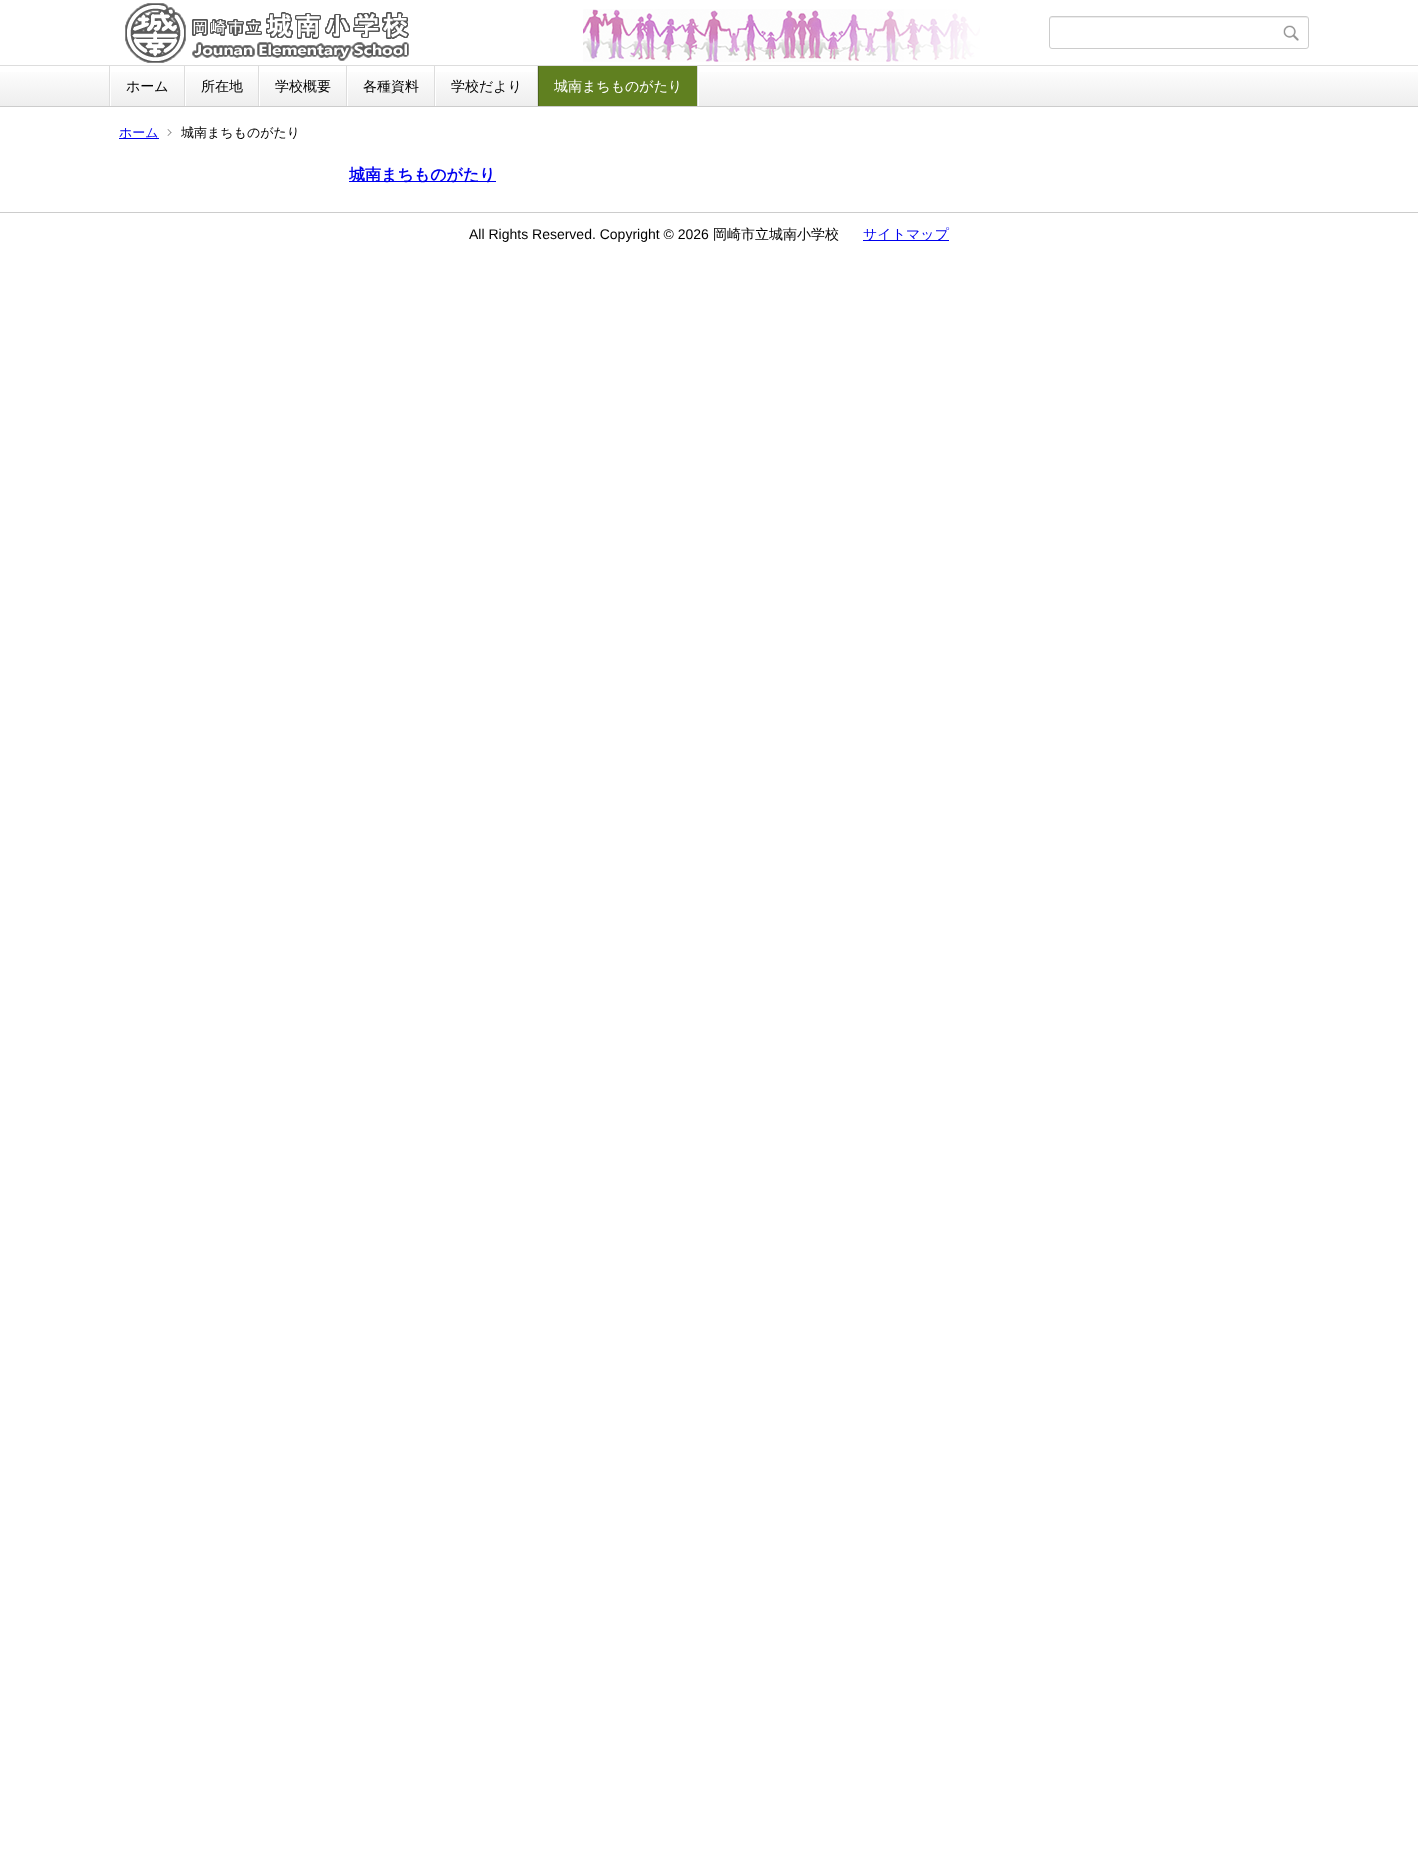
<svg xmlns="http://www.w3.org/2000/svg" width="1418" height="1871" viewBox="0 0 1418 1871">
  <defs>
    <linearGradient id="g1" gradientUnits="userSpaceOnUse" x1="709" y1="66" x2="709" y2="106"><stop offset="0" stop-color="#ffffff"/><stop offset="1" stop-color="#eeeeee"/></linearGradient>
  </defs>
  <rect width="100%" height="100%" fill="#ffffff"/>
  <image x="583" y="9" width="397" height="53" href="img1.png"/>
  <image x="125" y="3" width="284" height="60" href="img2.png"/>
  <path d="M1052 18H1306C1307 18 1308 19 1308 20L1307 17H1052C1050 17 1050 19 1050 20C1050 19 1051 18 1052 18Z" fill="#ececec"/>
  <rect x="1049.5" y="16.5" width="259" height="32" rx="2.5" fill="none" stroke="#cccccc"/>
  <image x="1283" y="25" width="16" height="16" href="img3.png"/>
  <rect x="0" y="72" width="1418" height="34" fill="url(#g1)"/>
  <rect x="0" y="65" width="1418" height="1" fill="#dddddd"/>
  <rect x="0" y="106" width="1418" height="1" fill="#cccccc"/>
  <rect x="109" y="66" width="1" height="40" fill="#dddddd"/>
  <rect x="184" y="66" width="1" height="40" fill="#dddddd"/>
  <rect x="110" y="66" width="1" height="40" fill="#ffffff"/>
  <text x="126" y="91" font-family="WenQuanYi Zen Hei" font-size="14" font-weight="500" fill="#000000">ホーム</text>
  <rect x="258" y="66" width="1" height="40" fill="#dddddd"/>
  <rect x="185" y="66" width="1" height="40" fill="#ffffff"/>
  <text x="201" y="91" font-family="WenQuanYi Zen Hei" font-size="14" font-weight="500" fill="#000000">所在地</text>
  <rect x="346" y="66" width="1" height="40" fill="#dddddd"/>
  <rect x="259" y="66" width="1" height="40" fill="#ffffff"/>
  <text x="275" y="91" font-family="WenQuanYi Zen Hei" font-size="14" font-weight="500" fill="#000000">学校概要</text>
  <rect x="434" y="66" width="1" height="40" fill="#dddddd"/>
  <rect x="347" y="66" width="1" height="40" fill="#ffffff"/>
  <text x="363" y="91" font-family="WenQuanYi Zen Hei" font-size="14" font-weight="500" fill="#000000">各種資料</text>
  <rect x="537" y="66" width="1" height="40" fill="#dddddd"/>
  <rect x="435" y="66" width="1" height="40" fill="#ffffff"/>
  <text x="451" y="91" font-family="WenQuanYi Zen Hei" font-size="14" font-weight="500" fill="#000000">学校だより</text>
  <rect x="698" y="66" width="1" height="40" fill="#ffffff"/>
  <rect x="539" y="66" width="158" height="40" fill="#608020"/>
  <rect x="697" y="66" width="1" height="40" fill="#dddddd"/>
  <rect x="538" y="66" width="1" height="40" fill="#4d661a"/>
  <text x="554" y="91" font-family="WenQuanYi Zen Hei" font-size="14" font-weight="500" fill="#ffffff">城南まちものがたり</text>
  <rect x="119" y="138" width="40" height="1" fill="#0000ee"/>
  <text x="119" y="137" font-family="WenQuanYi Zen Hei" font-size="13" font-weight="500" fill="#0000ee">ホーム</text>
  <path d="M168 129L171.5 132.5L171 133L167.5 129.5Z" fill="#777777"/>
  <path d="M171 132L171.5 132.5L168 136L167.5 135.5Z" fill="#777777"/>
  <text x="181" y="137" font-family="WenQuanYi Zen Hei" font-size="13" font-weight="500" fill="#000000">城南まちものがたり</text>
  <rect x="349" y="181" width="147" height="1" fill="#0000ee"/>
  <text x="349" y="180" font-family="WenQuanYi Zen Hei" font-size="16" font-weight="bold" fill="#0000ee">城南まちものがたり</text>
  <rect x="0" y="212" width="1418" height="1" fill="#cccccc"/>
  <text x="469" y="239" font-family="Liberation Sans" font-size="14" fill="#000000">All Rights Reserved. Copyright © 2026</text>
  <text x="713" y="239" font-family="WenQuanYi Zen Hei" font-size="14" font-weight="500" fill="#000000">岡崎市立城南小学校</text>
  <rect x="863" y="240" width="86" height="1" fill="#0000ee"/>
  <text x="863" y="239" font-family="WenQuanYi Zen Hei" font-size="14" font-weight="500" fill="#0000ee">サイトマップ</text>
</svg>
